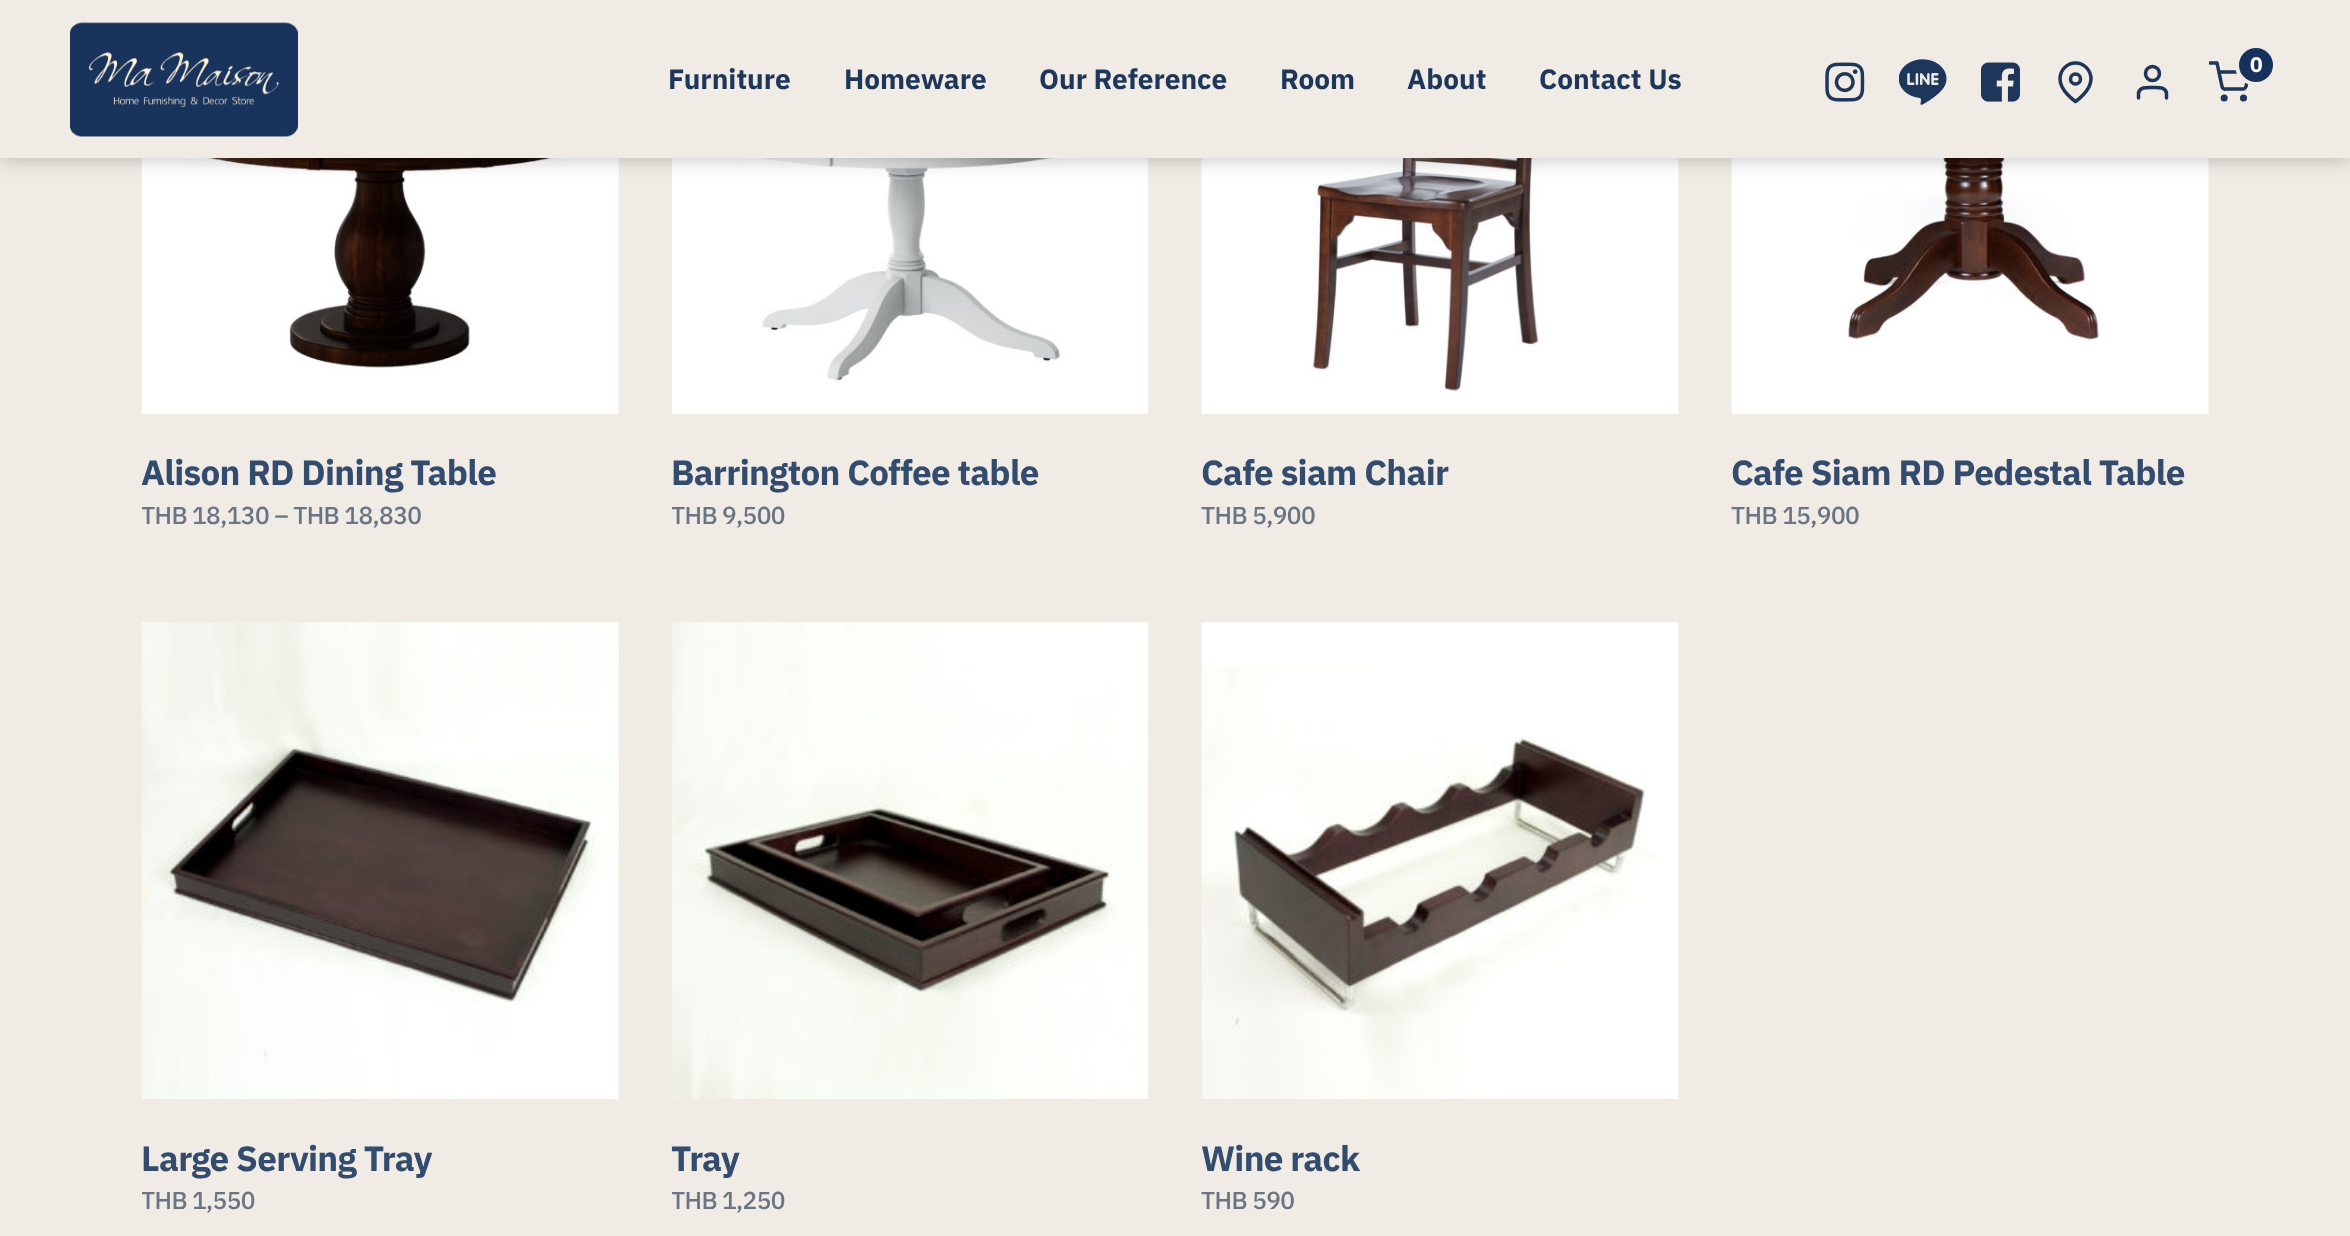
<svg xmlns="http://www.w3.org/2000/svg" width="2350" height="1236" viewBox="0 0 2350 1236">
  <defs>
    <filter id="blur1" x="-50%" y="-200%" width="200%" height="500%"><feGaussianBlur stdDeviation="9"/></filter>
    <clipPath id="clip1"><rect x="2209" y="61" width="42" height="42"/></clipPath>
    <clipPath id="clip2"><rect x="142" y="415" width="478" height="154"/></clipPath>
    <clipPath id="clip3"><rect x="672" y="415" width="476" height="154"/></clipPath>
    <clipPath id="clip4"><rect x="142" y="1099" width="478" height="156"/></clipPath>
    <clipPath id="clip5"><rect x="672" y="1099" width="476" height="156"/></clipPath>
  </defs>
  <rect width="100%" height="100%" fill="#f0ebe5"/>
  <image x="141" y="158" width="478" height="256" href="img5.png"/>
  <image x="672" y="158" width="476" height="256" href="img6.png"/>
  <image x="1201" y="158" width="478" height="256" href="img7.png"/>
  <image x="1731" y="158" width="478" height="256" href="img8.png"/>
  <rect x="0" y="4" width="2350" height="157" fill="#000000" fill-opacity="0.2" filter="url(#blur1)"/>
  <rect x="0" y="0" width="2350" height="158" fill="#f0ebe5"/>
  <image x="70" y="22" width="228" height="115" href="img1.png"/>
  <image x="1825" y="62" width="40" height="40" href="img2.png"/>
  <image x="1899" y="59" width="48" height="46" href="img3.png"/>
  <image x="1981" y="62" width="39" height="40" href="img4.png"/>
  <path d="M2091 79C2091 91 2075.5 101.5 2075.5 101.5C2075.5 101.5 2060 91 2060 79C2060 70 2067 63 2075.5 63C2084 63 2091 70 2091 79Z" fill="none" stroke="#1e3659" stroke-width="3.5" stroke-linecap="round" stroke-linejoin="round"/>
  <circle cx="2075.5" cy="79" r="5" fill="none" stroke="#1e3659" stroke-width="3.5"/>
  <path d="M2166.5 98V93C2165 86.5 2157.5 87.5 2152.5 87.5C2147.5 87.5 2140 86.5 2138.5 93V98" fill="none" stroke="#1e3659" stroke-width="3.5" stroke-linecap="round" stroke-linejoin="round"/>
  <circle cx="2152.5" cy="73.5" r="7" fill="none" stroke="#1e3659" stroke-width="3.5"/>
  <circle cx="2224.2" cy="98" r="1.8" fill="none" stroke="#1e3659" stroke-width="3.5"/>
  <circle cx="2243.5" cy="98" r="1.8" fill="none" stroke="#1e3659" stroke-width="3.5"/>
  <g clip-path="url(#clip1)">
    <path d="M2210 63H2217L2222 86.5C2222.5 88 2223.5 89.5 2225.5 89H2242.5C2244 89.5 2245.5 88 2246 86.5L2249 72H2219" fill="none" stroke="#1e3659" stroke-width="3.5" stroke-linecap="round" stroke-linejoin="round"/>
  </g>
  <circle cx="2256" cy="65" r="19" fill="#16325c" stroke="#f0ebe5" stroke-width="4"/>
  <text x="2250" y="72" font-family="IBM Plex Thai" font-size="21" font-weight="bold" letter-spacing="-0.6" fill="#ffffff">0</text>
  <text x="668" y="89" font-family="IBM Plex Thai" font-size="28" font-weight="bold" fill="#1e3659">Furniture</text>
  <text x="844" y="89" font-family="IBM Plex Thai" font-size="28" font-weight="bold" fill="#1e3659">Homeware</text>
  <text x="1039" y="89" font-family="IBM Plex Thai" font-size="28" font-weight="bold" fill="#1e3659">Our Reference</text>
  <text x="1280" y="89" font-family="IBM Plex Thai" font-size="28" font-weight="bold" fill="#1e3659">Room</text>
  <text x="1407" y="89" font-family="IBM Plex Thai" font-size="28" font-weight="bold" fill="#1e3659">About</text>
  <text x="1539" y="89" font-family="IBM Plex Thai" font-size="28" font-weight="bold" fill="#1e3659">Contact Us</text>
  <text x="141" y="485" font-family="IBM Plex Thai" font-size="35" font-weight="bold" letter-spacing="-0.7" fill="#334b6d">Alison RD Dining Table</text>
  <g clip-path="url(#clip2)">
    <text x="141" y="524" font-family="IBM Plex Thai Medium" font-size="24.5" font-weight="500" letter-spacing="-0.6" fill="#6a7584">THB</text>
  </g>
  <text x="192" y="524" font-family="IBM Plex Thai Medium" font-size="24.5" font-weight="500" letter-spacing="-0.6" fill="#6a7584">18,130 – THB 18,830</text>
  <text x="671" y="485" font-family="IBM Plex Thai" font-size="35" font-weight="bold" letter-spacing="-0.7" fill="#334b6d">Barrington Coffee table</text>
  <g clip-path="url(#clip3)">
    <text x="671" y="524" font-family="IBM Plex Thai Medium" font-size="24.5" font-weight="500" letter-spacing="-0.6" fill="#6a7584">THB</text>
  </g>
  <text x="722" y="524" font-family="IBM Plex Thai Medium" font-size="24.5" font-weight="500" letter-spacing="-0.6" fill="#6a7584">9,500</text>
  <text x="1201" y="485" font-family="IBM Plex Thai" font-size="35" font-weight="bold" letter-spacing="-0.7" fill="#334b6d">Cafe siam Chair</text>
  <text x="1201" y="524" font-family="IBM Plex Thai Medium" font-size="24.5" font-weight="500" letter-spacing="-0.6" fill="#6a7584">THB 5,900</text>
  <text x="1731" y="485" font-family="IBM Plex Thai" font-size="35" font-weight="bold" letter-spacing="-0.7" fill="#334b6d">Cafe Siam RD Pedestal Table</text>
  <text x="1731" y="524" font-family="IBM Plex Thai Medium" font-size="24.5" font-weight="500" letter-spacing="-0.6" fill="#6a7584">THB 15,900</text>
  <image x="141" y="622" width="478" height="477" href="img9.png"/>
  <text x="141" y="1171" font-family="IBM Plex Thai" font-size="35" font-weight="bold" letter-spacing="-0.7" fill="#334b6d">Large Serving Tray</text>
  <g clip-path="url(#clip4)">
    <text x="141" y="1209" font-family="IBM Plex Thai Medium" font-size="24.5" font-weight="500" letter-spacing="-0.6" fill="#6a7584">THB</text>
  </g>
  <text x="192" y="1209" font-family="IBM Plex Thai Medium" font-size="24.5" font-weight="500" letter-spacing="-0.6" fill="#6a7584">1,550</text>
  <image x="672" y="622" width="476" height="477" href="img10.png"/>
  <text x="671" y="1171" font-family="IBM Plex Thai" font-size="35" font-weight="bold" letter-spacing="-0.7" fill="#334b6d">Tray</text>
  <g clip-path="url(#clip5)">
    <text x="671" y="1209" font-family="IBM Plex Thai Medium" font-size="24.5" font-weight="500" letter-spacing="-0.6" fill="#6a7584">THB</text>
  </g>
  <text x="722" y="1209" font-family="IBM Plex Thai Medium" font-size="24.5" font-weight="500" letter-spacing="-0.6" fill="#6a7584">1,250</text>
  <image x="1201" y="622" width="478" height="477" href="img11.png"/>
  <text x="1201" y="1171" font-family="IBM Plex Thai" font-size="35" font-weight="bold" letter-spacing="-0.7" fill="#334b6d">Wine rack</text>
  <text x="1201" y="1209" font-family="IBM Plex Thai Medium" font-size="24.5" font-weight="500" letter-spacing="-0.6" fill="#6a7584">THB 590</text>
</svg>
